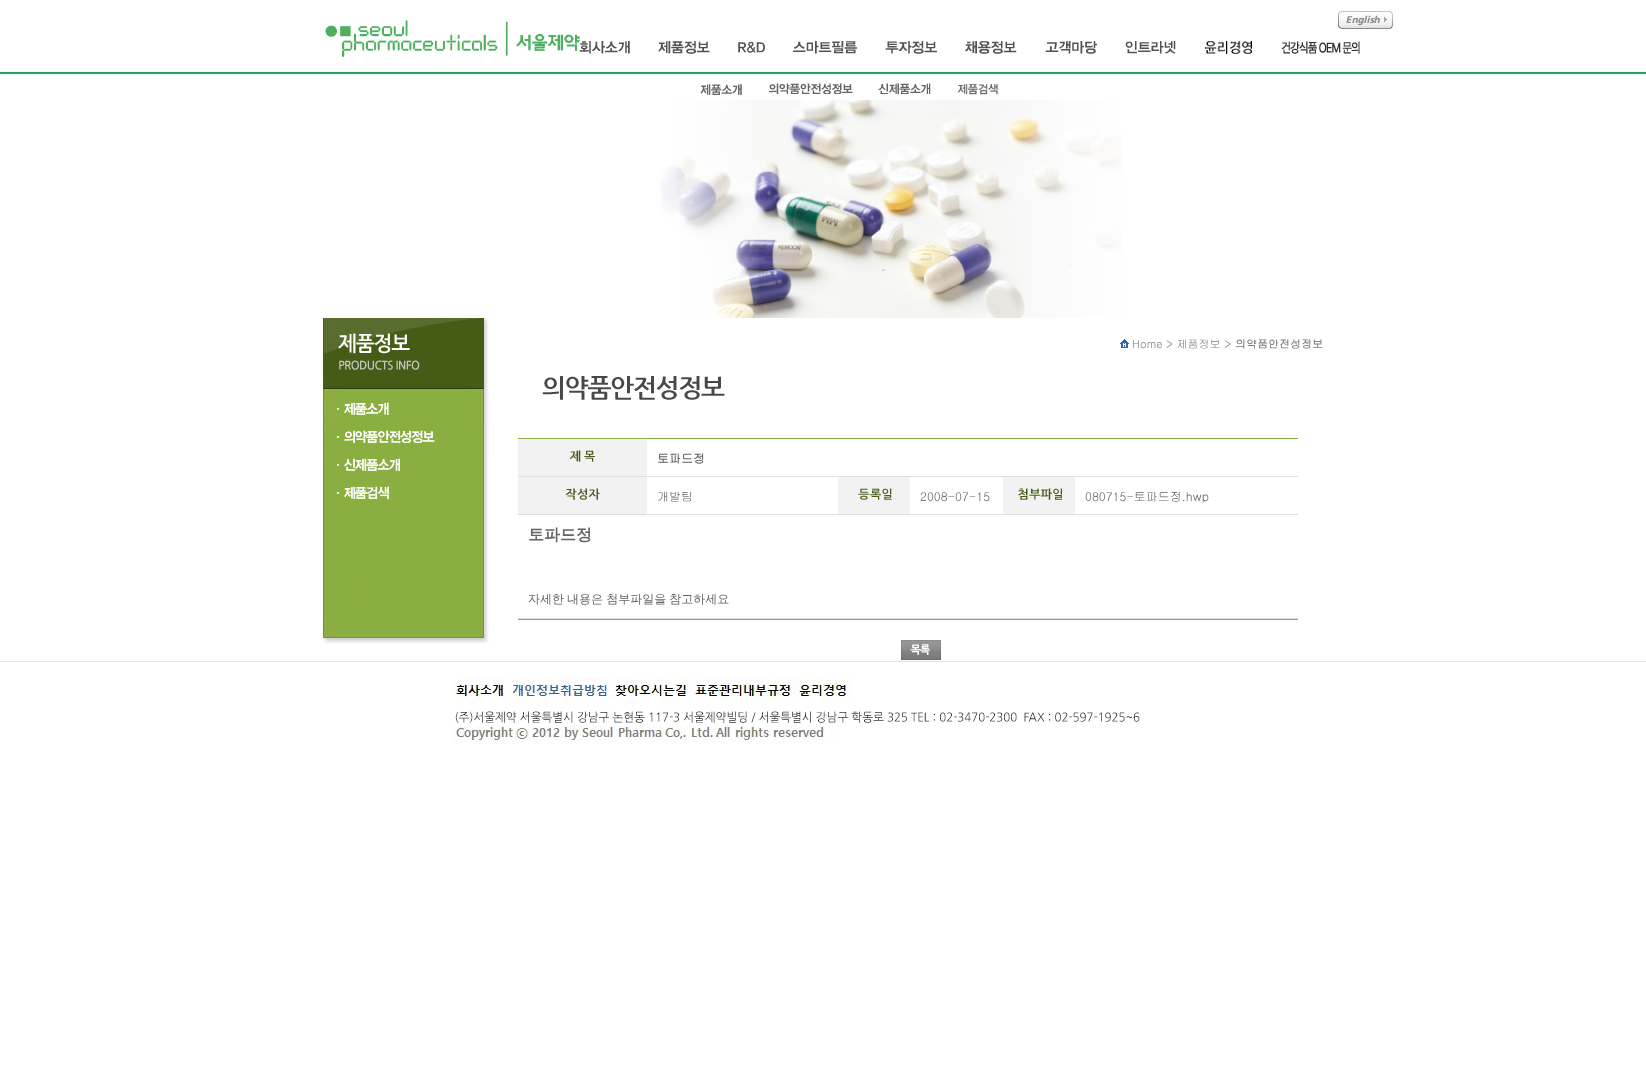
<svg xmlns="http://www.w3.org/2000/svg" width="1646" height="1076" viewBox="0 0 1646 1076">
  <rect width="100%" height="100%" fill="#ffffff"/>
  <image x="0" y="71" width="1646" height="4" href="img1.png"/>
  <image x="325" y="20" width="255" height="37" href="img2.png"/>
  <image x="579" y="41" width="51" height="13" href="img3.png"/>
  <image x="658" y="41" width="52" height="13" href="img4.png"/>
  <image x="738" y="42" width="27" height="11" href="img5.png"/>
  <image x="793" y="41" width="64" height="13" href="img6.png"/>
  <image x="885" y="41" width="52" height="13" href="img7.png"/>
  <image x="965" y="41" width="52" height="13" href="img8.png"/>
  <image x="1045" y="41" width="52" height="13" href="img9.png"/>
  <image x="1125" y="41" width="51" height="13" href="img10.png"/>
  <image x="1205" y="41" width="47" height="13" href="img11.png"/>
  <image x="1281" y="41" width="79" height="13" href="img12.png"/>
  <image x="1338" y="11" width="55" height="18" href="img13.png"/>
  <image x="700" y="84" width="42" height="11" href="img14.png"/>
  <image x="769" y="83" width="84" height="11" href="img15.png"/>
  <image x="878" y="83" width="53" height="11" href="img16.png"/>
  <image x="957" y="84" width="42" height="11" href="img17.png"/>
  <image x="660" y="100" width="463" height="218" href="img18.png"/>
  <image x="323" y="318" width="168" height="326" href="img19.png"/>
  <image x="337" y="402" width="54" height="14" href="img20.png"/>
  <image x="337" y="430" width="99" height="14" href="img21.png"/>
  <image x="337" y="458" width="64" height="14" href="img22.png"/>
  <image x="337" y="486" width="54" height="14" href="img23.png"/>
  <image x="1120" y="339" width="9" height="9" href="img24.png"/>
  <text x="1132" y="348" font-family="Gulim" font-size="11" fill="#7d7d7d">Home &gt; 제품정보 &gt;</text>
  <text x="1235" y="348" font-family="Gulim" font-size="11" font-weight="bold" fill="#7d7d7d">의약품안전성정보</text>
  <image x="542" y="376" width="183" height="24" href="img25.png"/>
  <rect x="518" y="438" width="780" height="1" fill="#8cad42"/>
  <rect x="518" y="619" width="780" height="1" fill="#8cad42"/>
  <rect x="518" y="476" width="780" height="1" fill="#dfdfdf"/>
  <image x="518" y="439" width="129" height="37" href="img26.png"/>
  <text x="657" y="463" font-family="Gulim" font-size="12" font-weight="bold" fill="#646464">토파드정</text>
  <rect x="518" y="514" width="780" height="1" fill="#dfdfdf"/>
  <image x="518" y="477" width="129" height="37" href="img27.png"/>
  <text x="657" y="501" font-family="Gulim" font-size="12" fill="#646464">개발팀</text>
  <image x="838" y="477" width="72" height="37" href="img28.png"/>
  <text x="920" y="501" font-family="Gulim" font-size="12" fill="#646464">2008-07-15</text>
  <image x="1003" y="477" width="72" height="37" href="img29.png"/>
  <text x="1085" y="501" font-family="Gulim" font-size="12" fill="#646464">080715-토파드정.hwp</text>
  <rect x="518" y="618" width="780" height="1" fill="#dfdfdf"/>
  <text x="528" y="540" font-family="WenQuanYi Zen Hei" font-size="16" font-weight="bold" fill="#646464">토파드정</text>
  <text x="528" y="603" word-spacing="-0.5" font-family="WenQuanYi Zen Hei" font-size="12" font-weight="500" fill="#646464">자세한 내용은 첨부파일을 참고하세요</text>
  <image x="901" y="640" width="40" height="20" href="img30.png"/>
  <rect x="0" y="661" width="1646" height="1" fill="#e4e4e4"/>
  <image x="451" y="678" width="689" height="64" href="img31.png"/>
</svg>
